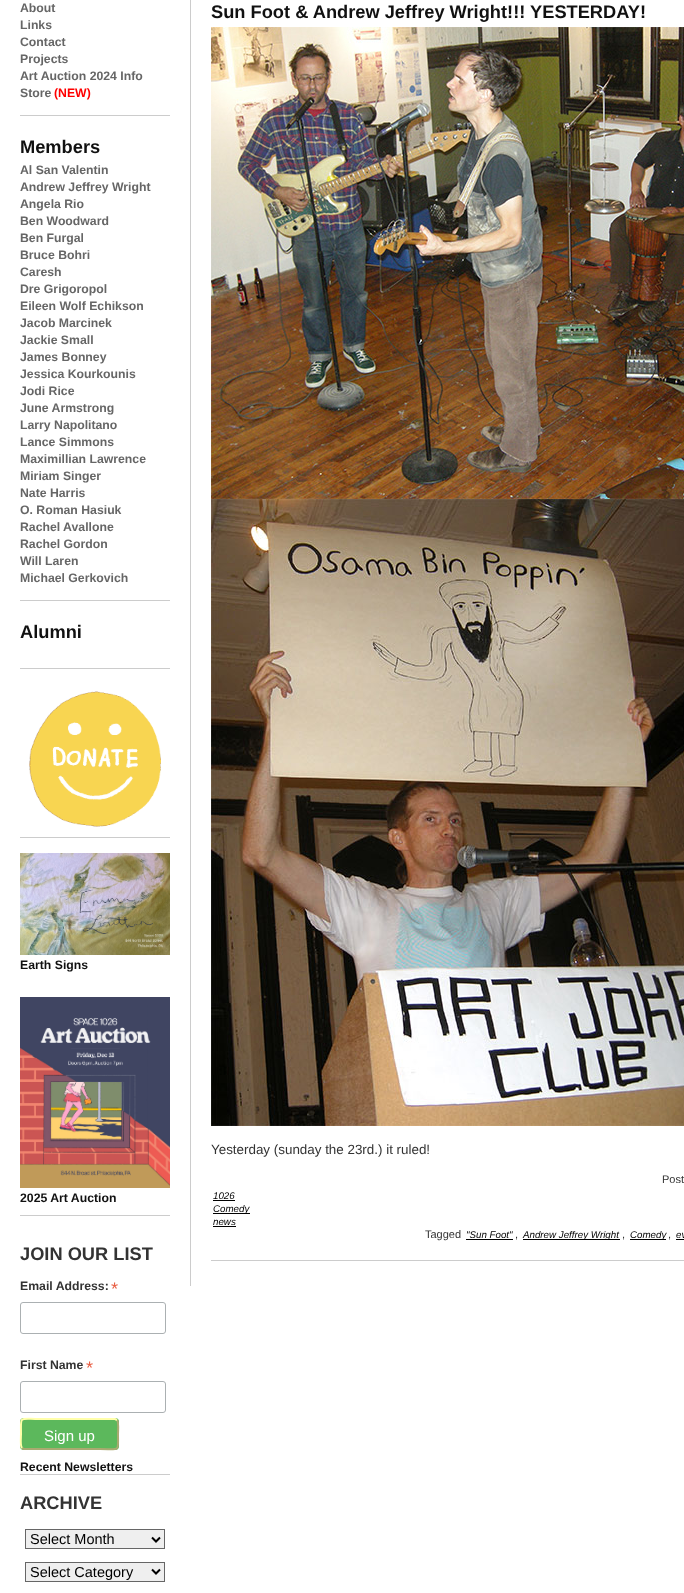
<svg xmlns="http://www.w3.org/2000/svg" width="684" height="1593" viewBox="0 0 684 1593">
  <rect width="100%" height="100%" fill="#ffffff"/>
  <rect x="20" y="115" width="150" height="1" fill="#cccccc"/>
  <text x="20" y="12" font-family="Liberation Sans" font-size="12.25" font-weight="bold" fill="#666666">About</text>
  <text x="20" y="29" font-family="Liberation Sans" font-size="12.25" font-weight="bold" fill="#666666">Links</text>
  <text x="20" y="46" font-family="Liberation Sans" font-size="12.25" font-weight="bold" fill="#666666">Contact</text>
  <text x="20" y="63" font-family="Liberation Sans" font-size="12.25" font-weight="bold" fill="#666666">Projects</text>
  <text x="20" y="80" font-family="Liberation Sans" font-size="12.25" font-weight="bold" fill="#666666">Art Auction 2024 Info</text>
  <text x="20" y="97" font-family="Liberation Sans" font-size="12.25" font-weight="bold" fill="#666666">Store</text>
  <text x="54" y="97" font-family="Liberation Sans" font-size="12.25" font-weight="bold" fill="#ff0000">(NEW)</text>
  <text x="20" y="153" font-family="Liberation Sans" font-size="18.25" font-weight="bold" fill="#111111">Members</text>
  <rect x="20" y="600" width="150" height="1" fill="#cccccc"/>
  <text x="20" y="174" font-family="Liberation Sans" font-size="12.25" font-weight="bold" fill="#666666">Al San Valentin</text>
  <text x="20" y="191" font-family="Liberation Sans" font-size="12.25" font-weight="bold" fill="#666666">Andrew Jeffrey Wright</text>
  <text x="20" y="208" font-family="Liberation Sans" font-size="12.25" font-weight="bold" fill="#666666">Angela Rio</text>
  <text x="20" y="225" font-family="Liberation Sans" font-size="12.25" font-weight="bold" fill="#666666">Ben Woodward</text>
  <text x="20" y="242" font-family="Liberation Sans" font-size="12.25" font-weight="bold" fill="#666666">Ben Furgal</text>
  <text x="20" y="259" font-family="Liberation Sans" font-size="12.25" font-weight="bold" fill="#666666">Bruce Bohri</text>
  <text x="20" y="276" font-family="Liberation Sans" font-size="12.25" font-weight="bold" fill="#666666">Caresh</text>
  <text x="20" y="293" font-family="Liberation Sans" font-size="12.25" font-weight="bold" fill="#666666">Dre Grigoropol</text>
  <text x="20" y="310" font-family="Liberation Sans" font-size="12.25" font-weight="bold" fill="#666666">Eileen Wolf Echikson</text>
  <text x="20" y="327" font-family="Liberation Sans" font-size="12.25" font-weight="bold" fill="#666666">Jacob Marcinek</text>
  <text x="20" y="344" font-family="Liberation Sans" font-size="12.25" font-weight="bold" fill="#666666">Jackie Small</text>
  <text x="20" y="361" font-family="Liberation Sans" font-size="12.25" font-weight="bold" fill="#666666">James Bonney</text>
  <text x="20" y="378" font-family="Liberation Sans" font-size="12.25" font-weight="bold" fill="#666666">Jessica Kourkounis</text>
  <text x="20" y="395" font-family="Liberation Sans" font-size="12.25" font-weight="bold" fill="#666666">Jodi Rice</text>
  <text x="20" y="412" font-family="Liberation Sans" font-size="12.25" font-weight="bold" fill="#666666">June Armstrong</text>
  <text x="20" y="429" font-family="Liberation Sans" font-size="12.25" font-weight="bold" fill="#666666">Larry Napolitano</text>
  <text x="20" y="446" font-family="Liberation Sans" font-size="12.25" font-weight="bold" fill="#666666">Lance Simmons</text>
  <text x="20" y="463" font-family="Liberation Sans" font-size="12.25" font-weight="bold" fill="#666666">Maximillian Lawrence</text>
  <text x="20" y="480" font-family="Liberation Sans" font-size="12.25" font-weight="bold" fill="#666666">Miriam Singer</text>
  <text x="20" y="497" font-family="Liberation Sans" font-size="12.25" font-weight="bold" fill="#666666">Nate Harris</text>
  <text x="20" y="514" font-family="Liberation Sans" font-size="12.25" font-weight="bold" fill="#666666">O. Roman Hasiuk</text>
  <text x="20" y="531" font-family="Liberation Sans" font-size="12.25" font-weight="bold" fill="#666666">Rachel Avallone</text>
  <text x="20" y="548" font-family="Liberation Sans" font-size="12.25" font-weight="bold" fill="#666666">Rachel Gordon</text>
  <text x="20" y="565" font-family="Liberation Sans" font-size="12.25" font-weight="bold" fill="#666666">Will Laren</text>
  <text x="20" y="582" font-family="Liberation Sans" font-size="12.25" font-weight="bold" fill="#666666">Michael Gerkovich</text>
  <text x="20" y="638" font-family="Liberation Sans" font-size="18.25" font-weight="bold" fill="#111111">Alumni</text>
  <rect x="20" y="668" width="150" height="1" fill="#cccccc"/>
  <rect x="20" y="837" width="150" height="1" fill="#cccccc"/>
  <image x="29" y="691" width="132" height="136" href="img1.png"/>
  <image x="20" y="853" width="150" height="102" href="img2.png"/>
  <text x="20" y="969" font-family="Liberation Sans" font-size="12.25" font-weight="bold" fill="#111111">Earth Signs</text>
  <image x="20" y="997" width="150" height="191" href="img3.png"/>
  <text x="20" y="1202" font-family="Liberation Sans" font-size="12.25" font-weight="bold" fill="#111111">2025 Art Auction</text>
  <rect x="20" y="1215" width="150" height="1" fill="#cccccc"/>
  <rect x="20" y="1474" width="150" height="1" fill="#cccccc"/>
  <text x="20" y="1260" font-family="Liberation Sans" font-size="18.25" font-weight="bold" fill="#333333">JOIN OUR LIST</text>
  <text x="20" y="1290" font-family="Liberation Sans" font-size="12.25" font-weight="bold" fill="#333333">Email Address:</text>
  <text x="111" y="1295" font-family="Liberation Sans" font-size="18.25" fill="#e85c41">*</text>
  <rect x="20.5" y="1302.5" width="145" height="31" rx="2.5" fill="none" stroke="#abb0b2"/>
  <text x="20" y="1369" font-family="Liberation Sans" font-size="12.25" font-weight="bold" fill="#333333">First Name</text>
  <text x="86" y="1374" font-family="Liberation Sans" font-size="18.25" fill="#e85c41">*</text>
  <rect x="20.5" y="1381.5" width="145" height="31" rx="2.5" fill="none" stroke="#abb0b2"/>
  <rect x="20" y="1418" width="99" height="32" rx="4" fill="#5cb85c"/>
  <path d="M117 1420C119 1422 118 1431.5 118 1434C118 1452.5 120.5 1449 100 1449H24L22 1448" fill="none" stroke="#aaaa71" stroke-width="2"/>
  <path d="M22 1448C20 1446 21 1436.5 21 1434C21 1415.5 18.5 1419 39 1419H115L117 1420" fill="none" stroke="#ffffaa" stroke-width="2"/>
  <text x="44" y="1441" font-family="Liberation Sans" font-size="15" fill="#ffffff">Sign up</text>
  <text x="20" y="1471" font-family="Liberation Sans" font-size="12.25" font-weight="bold" fill="#111111">Recent Newsletters</text>
  <text x="20" y="1509" font-family="Liberation Sans" font-size="18.25" font-weight="bold" fill="#333333">ARCHIVE</text>
  <rect x="25.5" y="1529.5" width="139" height="19" fill="#efefef" stroke="#666666"/>
  <path d="M152 1537.5L156 1541.5L160 1537.5" fill="none" stroke="#000000" stroke-width="2"/>
  <text x="30" y="1544" font-family="Liberation Sans" font-size="14.5" fill="#000000">Select Month</text>
  <rect x="25.5" y="1562.5" width="139" height="19" fill="#efefef" stroke="#666666"/>
  <path d="M152 1569.5L156 1573.5L160 1569.5" fill="none" stroke="#000000" stroke-width="2"/>
  <text x="30" y="1577" font-family="Liberation Sans" font-size="14.5" fill="#000000">Select Category</text>
  <rect x="190" y="0" width="1" height="1286" fill="#cccccc"/>
  <text x="211" y="18" font-family="Liberation Sans" font-size="18.25" font-weight="bold" fill="#111111">Sun Foot &amp; Andrew Jeffrey Wright!!! YESTERDAY!</text>
  <image x="211" y="27" width="473" height="472" href="img4.png"/>
  <image x="211" y="499" width="473" height="627" href="img5.png"/>
  <text x="211" y="1154" font-family="Liberation Sans" font-size="13.4" fill="#333333">Yesterday (sunday the 23rd.) it ruled!</text>
  <rect x="211" y="1260" width="473" height="1" fill="#cccccc"/>
  <text x="662" y="1183" font-family="Liberation Sans" font-size="11" fill="#333333">Post</text>
  <text x="213" y="1199" font-family="Liberation Sans" font-size="9.75" font-style="italic" fill="#000000">1026</text>
  <rect x="213" y="1200" width="22" height="1" fill="#000000"/>
  <rect x="213" y="1213" width="37" height="1" fill="#000000"/>
  <text x="213" y="1212" font-family="Liberation Sans" font-size="9.75" font-style="italic" fill="#000000">Comedy</text>
  <text x="213" y="1225" font-family="Liberation Sans" font-size="9.75" font-style="italic" fill="#000000">news</text>
  <rect x="213" y="1226" width="23" height="1" fill="#000000"/>
  <text x="425" y="1238" font-family="Liberation Sans" font-size="11" fill="#333333">Tagged</text>
  <text x="466" y="1238" font-family="Liberation Sans" font-size="9.75" font-style="italic" fill="#000000">"Sun Foot"</text>
  <text x="515" y="1238" font-family="Liberation Sans" font-size="11" fill="#333333">,</text>
  <rect x="466" y="1239" width="47" height="1" fill="#000000"/>
  <rect x="523" y="1239" width="97" height="1" fill="#000000"/>
  <text x="523" y="1238" font-family="Liberation Sans" font-size="9.75" font-style="italic" fill="#000000">Andrew Jeffrey Wright</text>
  <text x="622" y="1238" font-family="Liberation Sans" font-size="11" fill="#333333">,</text>
  <rect x="630" y="1239" width="36" height="1" fill="#000000"/>
  <text x="630" y="1238" font-family="Liberation Sans" font-size="9.75" font-style="italic" fill="#000000">Comedy</text>
  <text x="668" y="1238" font-family="Liberation Sans" font-size="11" fill="#333333">,</text>
  <rect x="676" y="1239" width="8" height="1" fill="#000000"/>
  <text x="676" y="1238" font-family="Liberation Sans" font-size="9.75" font-style="italic" fill="#000000">ev</text>
</svg>
